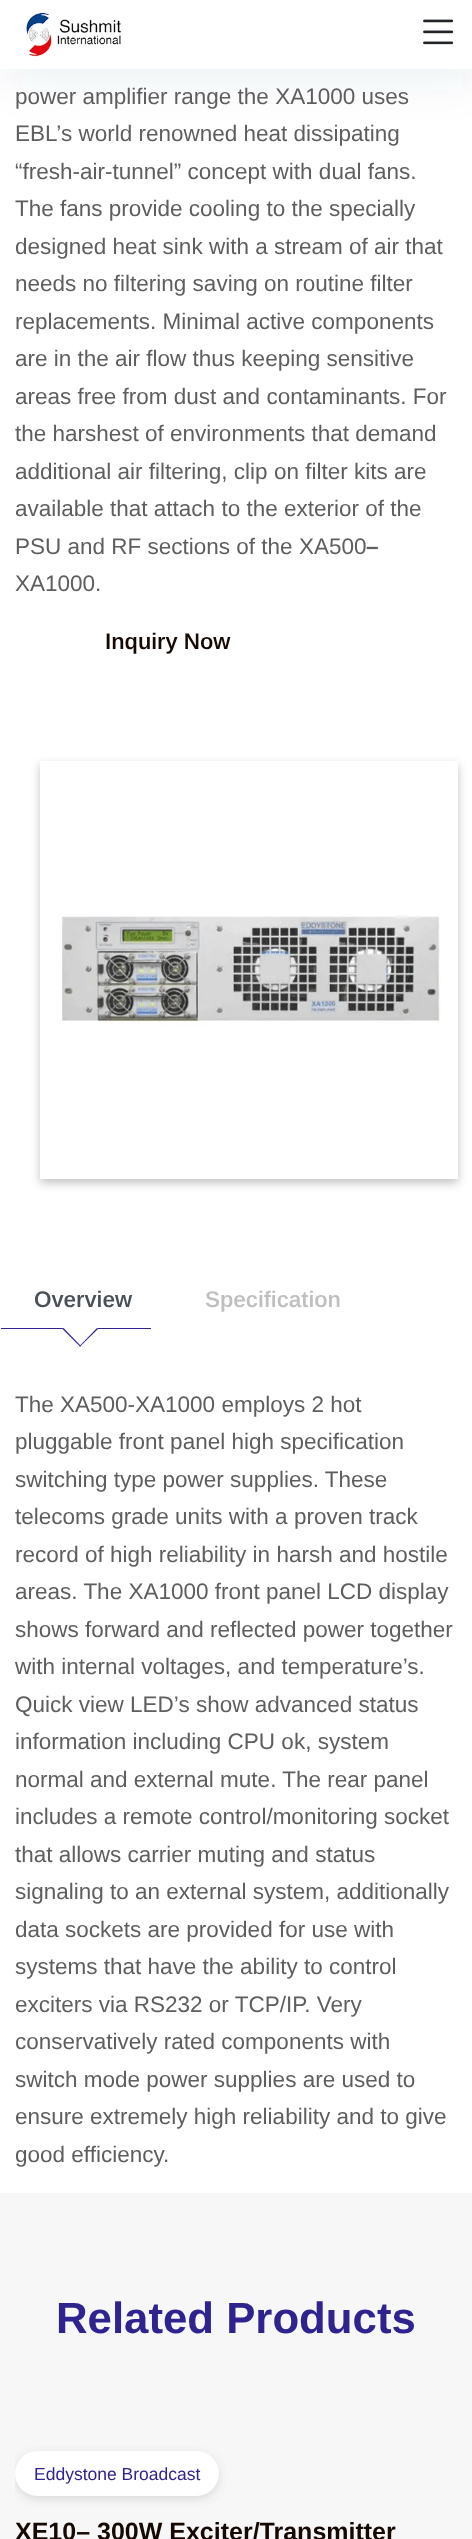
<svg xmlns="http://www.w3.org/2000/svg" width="472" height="2539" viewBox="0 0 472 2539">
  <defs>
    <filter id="blur1" x="-50%" y="-200%" width="200%" height="500%"><feGaussianBlur stdDeviation="25"/></filter>
    <clipPath id="clip1"><path d="M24 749H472V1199H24ZM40 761H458V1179H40Z" clip-rule="evenodd"/></clipPath>
    <filter id="blur2" x="-50%" y="-200%" width="200%" height="500%"><feGaussianBlur stdDeviation="5"/></filter>
    <clipPath id="clip2"><rect x="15" y="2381" width="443" height="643"/></clipPath>
  </defs>
  <rect width="100%" height="100%" fill="#ffffff"/>
  <rect x="6" y="4" width="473" height="69" fill="#004858" fill-opacity="0.1" filter="url(#blur1)"/>
  <rect x="0" y="0" width="472" height="69" fill="#ffffff"/>
  <image x="26" y="12" width="95" height="45" href="img1.png"/>
  <image x="423" y="19" width="31" height="26" href="img2.png"/>
  <text x="15" y="104" font-family="Arimo" font-size="22.5" fill="#5e5e5e">power amplifier range the XA1000 uses</text>
  <text x="15" y="141" font-family="Arimo" font-size="22.5" fill="#5e5e5e">EBL’s world renowned heat dissipating</text>
  <text x="15" y="179" font-family="Arimo" font-size="22.5" fill="#5e5e5e">“fresh-air-tunnel” concept with dual fans.</text>
  <text x="15" y="216" font-family="Arimo" font-size="22.5" fill="#5e5e5e">The fans provide cooling to the specially</text>
  <text x="15" y="254" font-family="Arimo" font-size="22.5" fill="#5e5e5e">designed heat sink with a stream of air that</text>
  <text x="15" y="291" font-family="Arimo" font-size="22.5" fill="#5e5e5e">needs no filtering saving on routine filter</text>
  <text x="15" y="329" font-family="Arimo" font-size="22.5" fill="#5e5e5e">replacements. Minimal active components</text>
  <text x="15" y="366" font-family="Arimo" font-size="22.5" fill="#5e5e5e">are in the air flow thus keeping sensitive</text>
  <text x="15" y="404" font-family="Arimo" font-size="22.5" fill="#5e5e5e">areas free from dust and contaminants. For</text>
  <text x="15" y="441" font-family="Arimo" font-size="22.5" fill="#5e5e5e">the harshest of environments that demand</text>
  <text x="15" y="479" font-family="Arimo" font-size="22.5" fill="#5e5e5e">additional air filtering, clip on filter kits are</text>
  <text x="15" y="516" font-family="Arimo" font-size="22.5" fill="#5e5e5e">available that attach to the exterior of the</text>
  <text x="15" y="554" font-family="Arimo" font-size="22.5" fill="#5e5e5e">PSU and RF sections of the XA500</text>
  <text x="366" y="554" font-family="Arimo" font-size="22.5" font-weight="bold" fill="#5e5e5e">–</text>
  <text x="15" y="591" font-family="Arimo" font-size="22.5" fill="#5e5e5e">XA1000.</text>
  <text x="105" y="649" font-family="Arimo" font-size="22.5" font-weight="600" fill="#160803">Inquiry Now</text>
  <g clip-path="url(#clip1)">
    <rect x="40" y="765" width="418" height="418" fill="#000000" fill-opacity="0.24" filter="url(#blur2)"/>
  </g>
  <image x="61" y="765" width="397" height="413" href="img3.png"/>
  <text x="34" y="1307" font-family="Arimo" font-size="22.5" font-weight="600" fill="#495057">Overview</text>
  <rect x="1" y="1328" width="150" height="1" fill="#2f248f"/>
  <path d="M80 1311.5L98 1329L80 1346.5L62.5 1329Z" fill="#ffffff"/>
  <path d="M97 1328L98 1329L80 1346.5L79.5 1346Z" fill="#2f248f"/>
  <path d="M63.5 1328L81 1346L80 1346.5L62.5 1329Z" fill="#2f248f"/>
  <text x="205" y="1307" font-family="Arimo" font-size="22.5" font-weight="600" fill="#bfbfbf">Specification</text>
  <text x="15" y="1412" font-family="Arimo" font-size="22.5" fill="#5e5e5e">The XA500-XA1000 employs 2 hot</text>
  <text x="15" y="1449" font-family="Arimo" font-size="22.5" fill="#5e5e5e">pluggable front panel high specification</text>
  <text x="15" y="1487" font-family="Arimo" font-size="22.5" fill="#5e5e5e">switching type power supplies. These</text>
  <text x="15" y="1524" font-family="Arimo" font-size="22.5" fill="#5e5e5e">telecoms grade units with a proven track</text>
  <text x="15" y="1562" font-family="Arimo" font-size="22.5" fill="#5e5e5e">record of high reliability in harsh and hostile</text>
  <text x="15" y="1599" font-family="Arimo" font-size="22.5" fill="#5e5e5e">areas. The XA1000 front panel LCD display</text>
  <text x="15" y="1637" font-family="Arimo" font-size="22.5" fill="#5e5e5e">shows forward and reflected power together</text>
  <text x="15" y="1674" font-family="Arimo" font-size="22.5" fill="#5e5e5e">with internal voltages, and temperature’s.</text>
  <text x="15" y="1712" font-family="Arimo" font-size="22.5" fill="#5e5e5e">Quick view LED’s show advanced status</text>
  <text x="15" y="1749" font-family="Arimo" font-size="22.5" fill="#5e5e5e">information including CPU ok, system</text>
  <text x="15" y="1787" font-family="Arimo" font-size="22.5" fill="#5e5e5e">normal and external mute. The rear panel</text>
  <text x="15" y="1824" font-family="Arimo" font-size="22.5" fill="#5e5e5e">includes a remote control/monitoring socket</text>
  <text x="15" y="1862" font-family="Arimo" font-size="22.5" fill="#5e5e5e">that allows carrier muting and status</text>
  <text x="15" y="1899" font-family="Arimo" font-size="22.5" fill="#5e5e5e">signaling to an external system, additionally</text>
  <text x="15" y="1937" font-family="Arimo" font-size="22.5" fill="#5e5e5e">data sockets are provided for use with</text>
  <text x="15" y="1974" font-family="Arimo" font-size="22.5" fill="#5e5e5e">systems that have the ability to control</text>
  <text x="15" y="2012" font-family="Arimo" font-size="22.5" fill="#5e5e5e">exciters via RS232 or TCP/IP. Very</text>
  <text x="15" y="2049" font-family="Arimo" font-size="22.5" fill="#5e5e5e">conservatively rated components with</text>
  <text x="15" y="2087" font-family="Arimo" font-size="22.5" fill="#5e5e5e">switch mode power supplies are used to</text>
  <text x="15" y="2124" font-family="Arimo" font-size="22.5" fill="#5e5e5e">ensure extremely high reliability and to give</text>
  <text x="15" y="2162" font-family="Arimo" font-size="22.5" fill="#5e5e5e">good efficiency.</text>
  <rect x="0" y="2193" width="472" height="346" fill="#f7f7f7"/>
  <text x="56" y="2333" font-family="Arimo" font-size="43.75" font-weight="bold" fill="#2f248f">Related Products</text>
  <g clip-path="url(#clip2)">
    <rect x="15" y="2454" width="204" height="45" rx="22.5" fill="#636363" fill-opacity="0.2" filter="url(#blur2)"/>
  </g>
  <rect x="15" y="2451" width="204" height="45" rx="22.5" fill="#ffffff"/>
  <text x="34" y="2480" font-family="Arimo" font-size="17.5" fill="#2f248f">Eddystone Broadcast</text>
  <text x="15" y="2540" font-family="Arimo" font-size="25" font-weight="bold" fill="#160803">XE10– 300W Exciter/Transmitter</text>
</svg>
